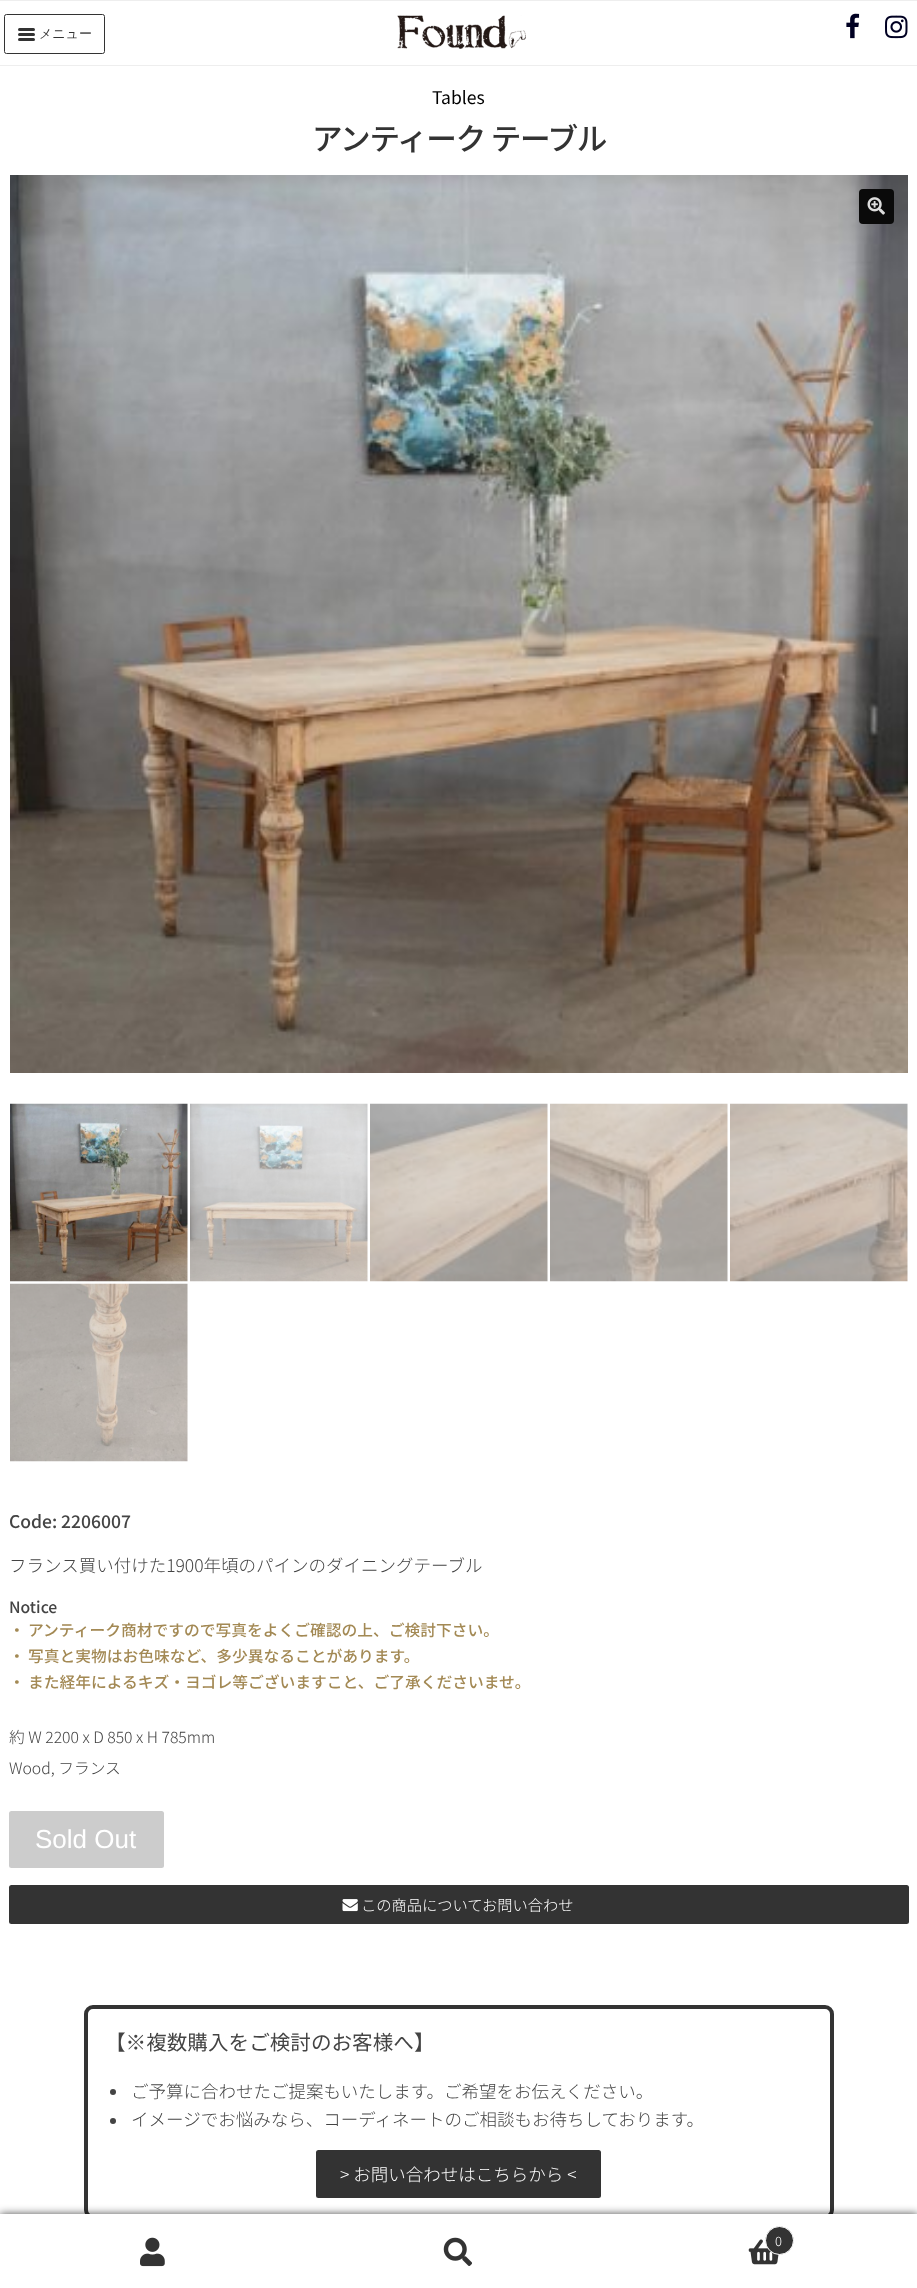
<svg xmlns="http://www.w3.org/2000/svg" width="917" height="2288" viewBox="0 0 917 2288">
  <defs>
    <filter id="blur1" x="-50%" y="-200%" width="200%" height="500%"><feGaussianBlur stdDeviation="4"/></filter>
  </defs>
  <rect width="100%" height="100%" fill="#ffffff"/>
  <rect x="0" y="0" width="917" height="1" fill="#eeeeee"/>
  <rect x="0" y="65" width="917" height="1" fill="#eeeeee"/>
  <rect x="4.5" y="14.5" width="100" height="39" rx="2" fill="none" stroke="#333333"/>
  <rect x="18" y="28" width="17" height="3" rx="1.5" fill="#333333"/>
  <rect x="18" y="33" width="17" height="3" rx="1.5" fill="#333333"/>
  <text x="39" y="38" font-family="WenQuanYi Zen Hei" font-size="13" font-weight="500" fill="#333333">メニュー</text>
  <rect x="18" y="38" width="17" height="3" rx="1.5" fill="#333333"/>
  <image x="397" y="15" width="129" height="34" href="img1.png"/>
  <image x="846" y="13" width="14" height="26" href="img2.png"/>
  <image x="885" y="15" width="23" height="24" href="img3.png"/>
  <text x="432" y="104" font-family="Noto Sans JP" font-size="17.5" fill="#000000">Tables</text>
  <text x="312" y="150" font-family="Noto Sans JP" font-size="30.6" font-weight="500" letter-spacing="-1.25" fill="#333333">アンティーク テーブル</text>
  <image x="10" y="175" width="898" height="898" href="img4.png"/>
  <rect x="859" y="189" width="35" height="35" rx="4" fill="#0a0a0a"/>
  <image x="867" y="197" width="18" height="18" href="img5.png"/>
  <image x="10" y="1103" width="178" height="179" href="img6.png"/>
  <image x="190" y="1103" width="178" height="179" href="img7.png"/>
  <image x="370" y="1103" width="178" height="179" href="img8.png"/>
  <image x="550" y="1103" width="178" height="179" href="img9.png"/>
  <image x="730" y="1103" width="178" height="179" href="img10.png"/>
  <image x="10" y="1283" width="178" height="179" href="img11.png"/>
  <text x="9" y="1528" font-family="Noto Sans JP" font-size="17.5" font-weight="500" fill="#444444">Code: 2206007</text>
  <text x="9" y="1572" font-family="Noto Sans JP" font-size="17.5" font-weight="300" fill="#444444">フランス買い付けた1900年頃のパインのダイニングテーブル</text>
  <text x="9" y="1613" font-family="Noto Sans JP" font-size="15.75" font-weight="500" fill="#444444">Notice</text>
  <text x="9" y="1636" font-family="Noto Sans JP" font-size="15.75" font-weight="500" fill="#a38954">・</text>
  <text x="28" y="1636" font-family="Noto Sans JP" font-size="15.75" font-weight="500" fill="#a38954">アンティーク商材ですので写真をよくご確認の上、ご検討下さい。</text>
  <text x="9" y="1662" font-family="Noto Sans JP" font-size="15.75" font-weight="500" fill="#a38954">・</text>
  <text x="28" y="1662" font-family="Noto Sans JP" font-size="15.75" font-weight="500" fill="#a38954">写真と実物はお色味など、多少異なることがあります。</text>
  <text x="9" y="1688" font-family="Noto Sans JP" font-size="15.75" font-weight="500" fill="#a38954">・</text>
  <text x="28" y="1688" font-family="Noto Sans JP" font-size="15.75" font-weight="500" fill="#a38954">また経年によるキズ・ヨゴレ等ございますこと、ご了承くださいませ。</text>
  <text x="9" y="1743" font-family="Noto Sans JP" font-size="15.75" font-weight="300" fill="#444444">約 W 2200 x D 850 x H 785mm</text>
  <text x="9" y="1774" font-family="Noto Sans JP" font-size="15.75" font-weight="300" fill="#444444">Wood, フランス</text>
  <rect x="9" y="1811" width="155" height="57" rx="2.5" fill="#cccccc"/>
  <text x="35" y="1848" font-family="Liberation Sans" font-size="26" fill="#ffffff">Sold Out</text>
  <rect x="9" y="1885" width="900" height="39" rx="2.5" fill="#333333"/>
  <image x="342" y="1899" width="16" height="13" href="img12.png"/>
  <text x="361" y="1911" font-family="Noto Sans JP" font-size="15.25" font-weight="300" fill="#ffffff">この商品についてお問い合わせ</text>
  <rect x="86" y="2007" width="746" height="210" rx="7" fill="none" stroke="#333333" stroke-width="4"/>
  <text x="105" y="2050" font-family="Noto Sans JP" font-size="20.6" fill="#444444">【※複数購入をご検討のお客様へ】</text>
  <circle cx="113" cy="2092" r="3" fill="#444444"/>
  <text x="131" y="2098" font-family="Noto Sans JP" font-size="17.5" font-weight="300" fill="#444444">ご予算に合わせたご提案もいたします。ご希望をお伝えください。</text>
  <circle cx="113" cy="2121" r="3" fill="#444444"/>
  <text x="131" y="2126" font-family="Noto Sans JP" font-size="17.5" font-weight="300" fill="#444444">イメージでお悩みなら、コーディネートのご相談もお待ちしております。</text>
  <rect x="316" y="2150" width="285" height="48" rx="2.5" fill="#333333"/>
  <text x="340" y="2181" font-family="Noto Sans JP" font-size="17.5" font-weight="300" fill="#ffffff">&gt; お問い合わせはこちらから &lt;</text>
  <rect x="0" y="2214" width="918" height="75" fill="#000000" fill-opacity="0.7" filter="url(#blur1)"/>
  <rect x="0" y="2214" width="917" height="1" fill="#ffffff"/>
  <rect x="0" y="2215" width="917" height="73" fill="#ffffff"/>
  <image x="140" y="2237" width="25" height="30" href="img13.png"/>
  <image x="443" y="2237" width="29" height="29" href="img14.png"/>
  <image x="748" y="2239" width="31" height="26" href="img15.png"/>
  <circle cx="779.5" cy="2240.5" r="14" fill="#333333" stroke="#ffffff"/>
  <text x="775" y="2246" font-family="Noto Sans JP" font-size="13" font-weight="300" fill="#ffffff">0</text>
</svg>
